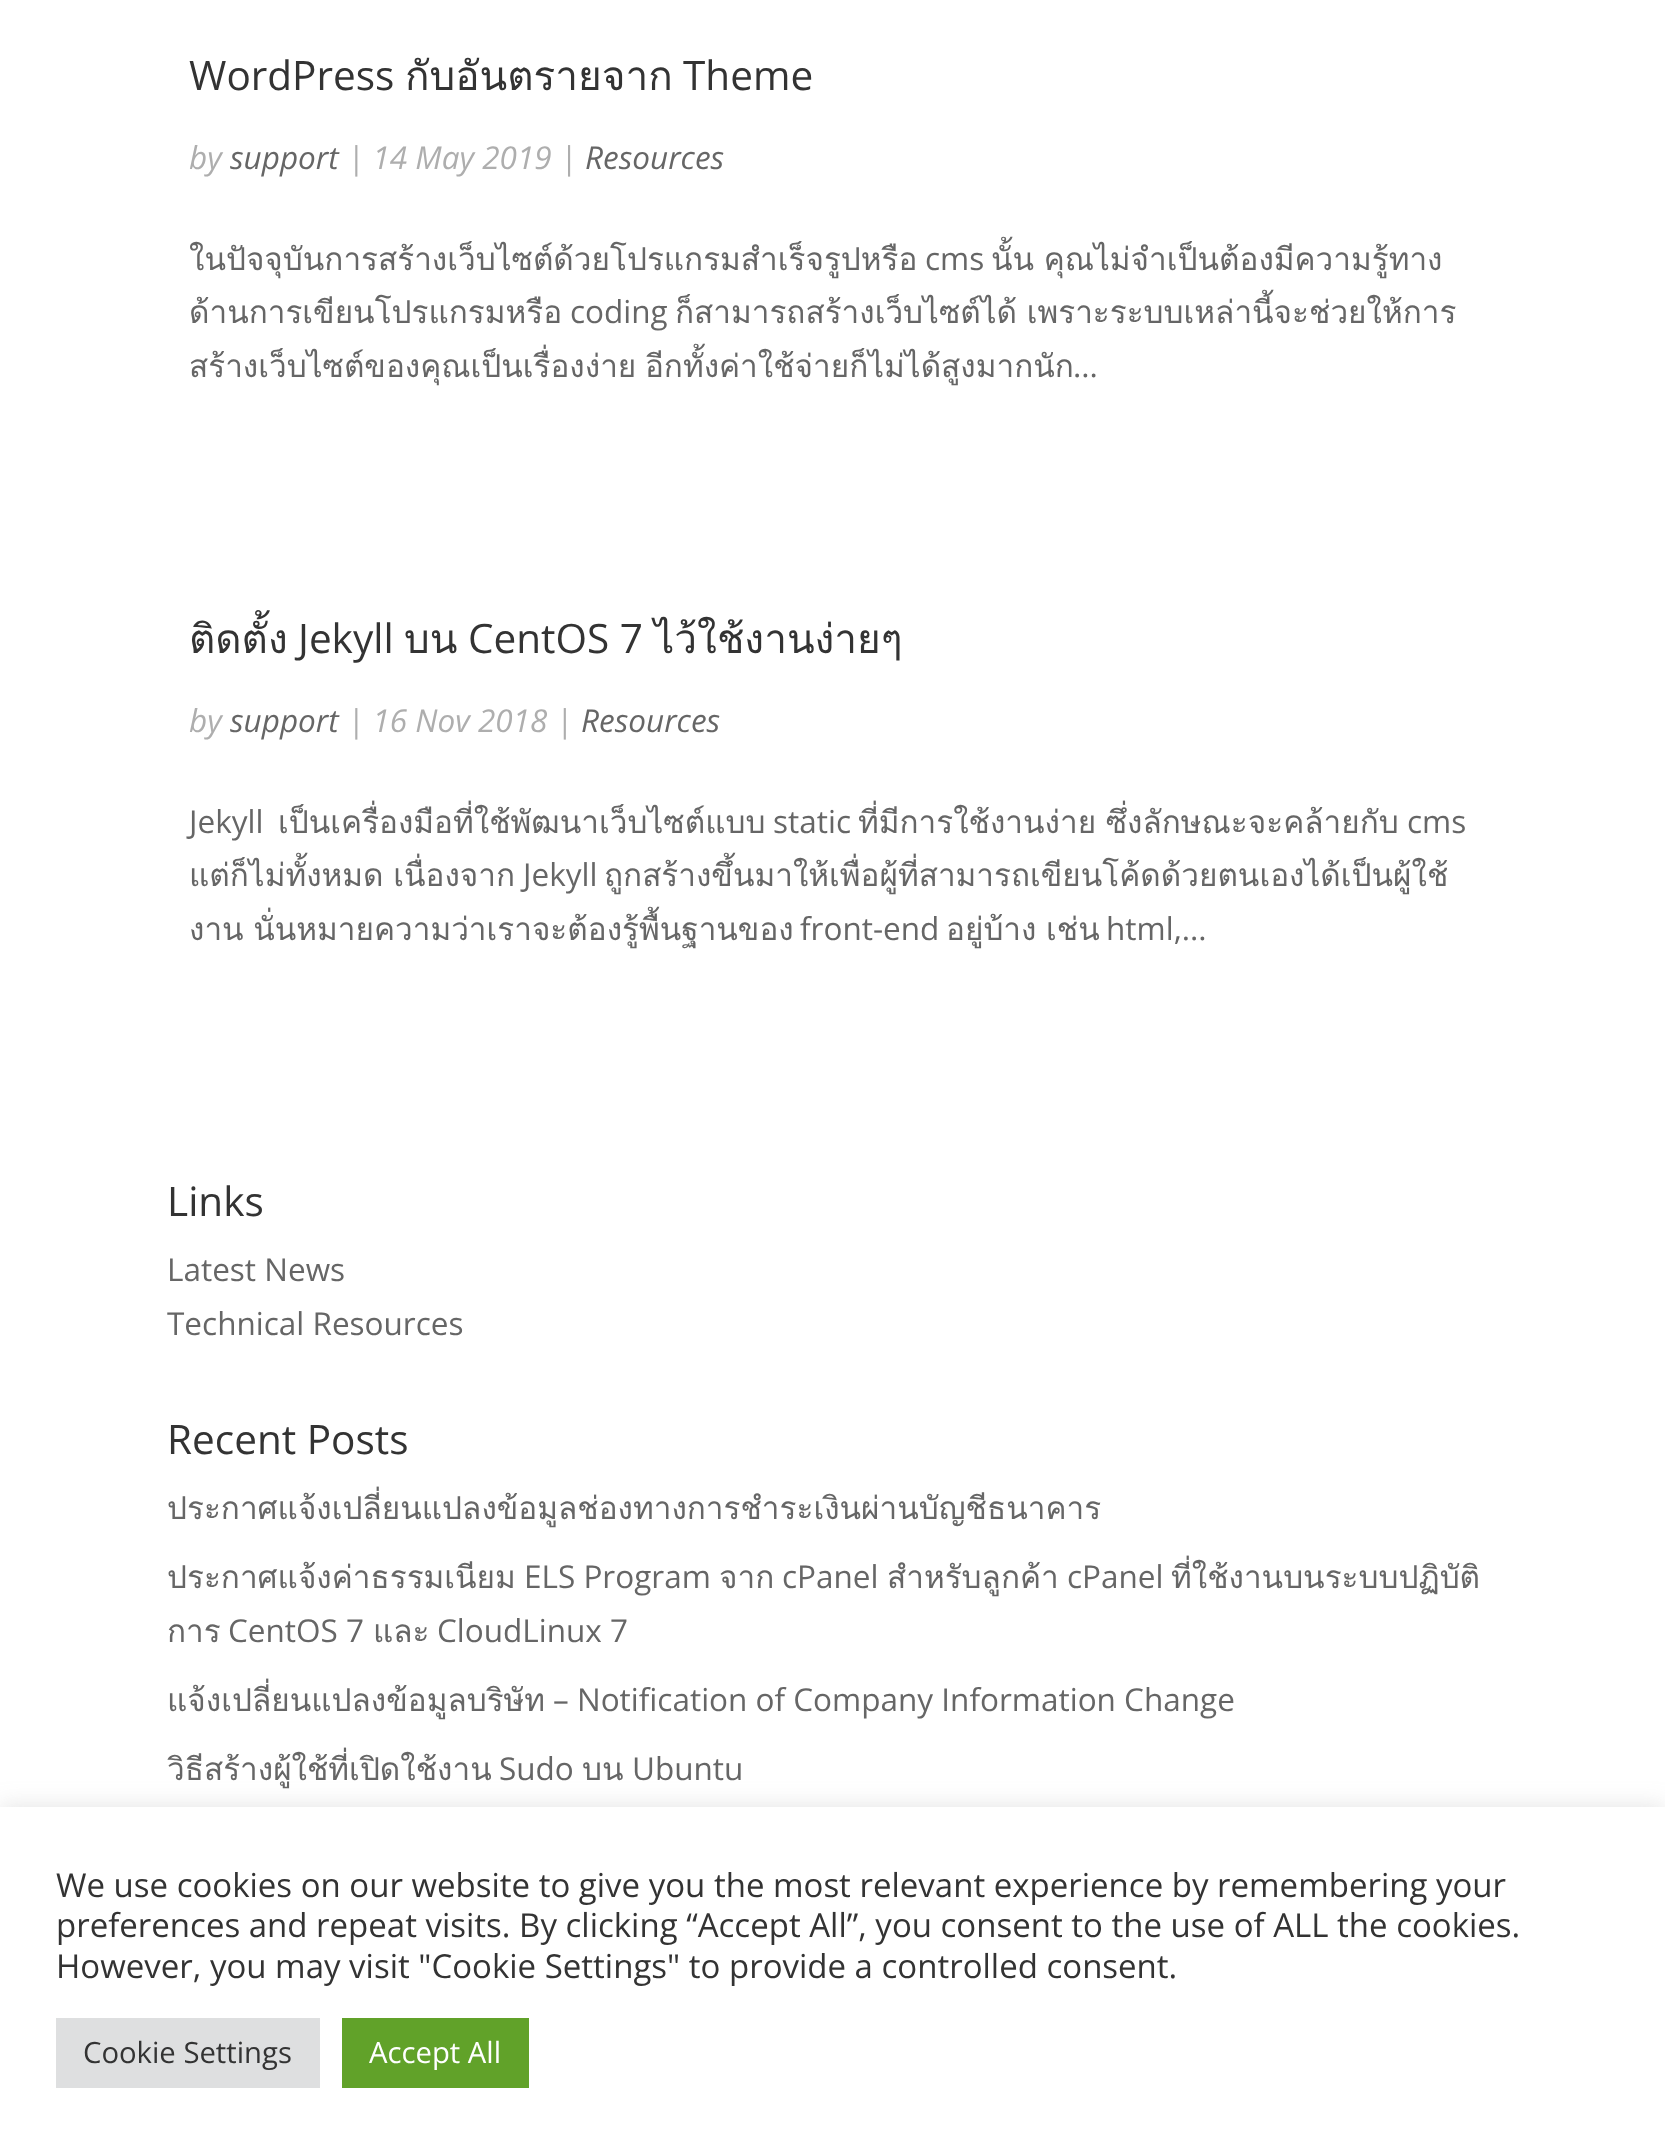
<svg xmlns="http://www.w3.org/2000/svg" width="1665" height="2155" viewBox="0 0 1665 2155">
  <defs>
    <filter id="blur1" x="-50%" y="-200%" width="200%" height="500%"><feGaussianBlur stdDeviation="11"/></filter>
  </defs>
  <rect width="100%" height="100%" fill="#ffffff"/>
  <text x="189" y="90" font-family="Open Sans" font-size="40.5" fill="#333333">WordPress</text>
  <text x="405" y="90" font-family="Loma" font-size="40.5" fill="#333333">กับอันตรายจาก</text>
  <text x="683" y="90" font-family="Open Sans" font-size="40.5" fill="#333333">Theme</text>
  <text x="189" y="169" font-family="Open Sans" font-size="31.5" font-style="italic" fill="#aeaeae">by</text>
  <text x="230" y="169" font-family="Open Sans" font-size="31.5" font-style="italic" fill="#666666">support</text>
  <text x="347" y="169" font-family="Open Sans" font-size="31.5" font-style="italic" fill="#aeaeae">| 14 May 2019 |</text>
  <text x="585" y="169" font-family="Open Sans" font-size="31.5" font-style="italic" fill="#666666">Resources</text>
  <text x="189" y="270" font-family="Loma" font-size="31.5" fill="#666666">ในปัจจุบันการสร้างเว็บไซต์ด้วยโปรแกรมสำเร็จรูปหรือ</text>
  <text x="925" y="270" font-family="Open Sans" font-size="31.5" fill="#666666">cms</text>
  <text x="991" y="270" word-spacing="-1" font-family="Loma" font-size="31.5" fill="#666666">นั้น คุณไม่จำเป็นต้องมีความรู้ทาง</text>
  <text x="189" y="323" font-family="Loma" font-size="31.5" fill="#666666">ด้านการเขียนโปรแกรมหรือ</text>
  <text x="570" y="323" font-family="Open Sans" font-size="31.5" fill="#666666">coding</text>
  <text x="675" y="323" word-spacing="-1" font-family="Loma" font-size="31.5" fill="#666666">ก็สามารถสร้างเว็บไซต์ได้ เพราะระบบเหล่านี้จะช่วยให้การ</text>
  <text x="189" y="377" word-spacing="-2" font-family="Loma" font-size="31.5" fill="#666666">สร้างเว็บไซต์ของคุณเป็นเรื่องง่าย อีกทั้งค่าใช้จ่ายก็ไม่ได้สูงมากนัก</text>
  <text x="1073" y="377" font-family="Open Sans" font-size="31.5" fill="#666666">...</text>
  <text x="189" y="653" font-family="Loma" font-size="40.5" fill="#333333">ติดตั้ง</text>
  <text x="298" y="653" font-family="Open Sans" font-size="40.5" fill="#333333">Jekyll</text>
  <text x="404" y="653" font-family="Loma" font-size="40.5" fill="#333333">บน</text>
  <text x="468" y="653" font-family="Open Sans" font-size="40.5" fill="#333333">CentOS 7</text>
  <text x="654" y="653" font-family="Loma" font-size="40.5" fill="#333333">ไว้ใช้งานง่ายๆ</text>
  <text x="189" y="732" font-family="Open Sans" font-size="31.5" font-style="italic" fill="#aeaeae">by</text>
  <text x="230" y="732" font-family="Open Sans" font-size="31.5" font-style="italic" fill="#666666">support</text>
  <text x="347" y="732" font-family="Open Sans" font-size="31.5" font-style="italic" fill="#aeaeae">| 16 Nov 2018 |</text>
  <text x="581" y="732" font-family="Open Sans" font-size="31.5" font-style="italic" fill="#666666">Resources</text>
  <text x="189" y="833" font-family="Open Sans" font-size="31.5" fill="#666666">Jekyll</text>
  <text x="278" y="833" font-family="Loma" font-size="31.5" fill="#666666">เป็นเครื่องมือที่ใช้พัฒนาเว็บไซต์แบบ</text>
  <text x="773" y="833" font-family="Open Sans" font-size="31.5" fill="#666666">static</text>
  <text x="858" y="833" word-spacing="-1" font-family="Loma" font-size="31.5" fill="#666666">ที่มีการใช้งานง่าย ซึ่งลักษณะจะคล้ายกับ</text>
  <text x="1407" y="833" font-family="Open Sans" font-size="31.5" fill="#666666">cms</text>
  <text x="189" y="886" word-spacing="-1" font-family="Loma" font-size="31.5" fill="#666666">แต่ก็ไม่ทั้งหมด เนื่องจาก</text>
  <text x="523" y="886" font-family="Open Sans" font-size="31.5" fill="#666666">Jekyll</text>
  <text x="604" y="886" font-family="Loma" font-size="31.5" fill="#666666">ถูกสร้างขึ้นมาให้เพื่อผู้ที่สามารถเขียนโค้ดด้วยตนเองได้เป็นผู้ใช้</text>
  <text x="189" y="940" word-spacing="-1" font-family="Loma" font-size="31.5" fill="#666666">งาน นั่นหมายความว่าเราจะต้องรู้พื้นฐานของ</text>
  <text x="800" y="940" font-family="Open Sans" font-size="31.5" fill="#666666">front-end</text>
  <text x="946" y="940" word-spacing="-1" font-family="Loma" font-size="31.5" fill="#666666">อยู่บ้าง เช่น</text>
  <text x="1106" y="940" font-family="Open Sans" font-size="31.5" fill="#666666">html,...</text>
  <text x="167" y="1216" font-family="Open Sans" font-size="40.5" fill="#333333">Links</text>
  <text x="167" y="1281" font-family="Open Sans" font-size="31.5" fill="#666666">Latest News</text>
  <text x="167" y="1335" font-family="Open Sans" font-size="31.5" fill="#666666">Technical Resources</text>
  <text x="167" y="1454" font-family="Open Sans" font-size="40.5" fill="#333333">Recent Posts</text>
  <text x="167" y="1519" font-family="Loma" font-size="31.5" fill="#666666">ประกาศแจ้งเปลี่ยนแปลงข้อมูลช่องทางการชำระเงินผ่านบัญชีธนาคาร</text>
  <text x="167" y="1588" font-family="Loma" font-size="31.5" fill="#666666">ประกาศแจ้งค่าธรรมเนียม</text>
  <text x="524" y="1588" font-family="Open Sans" font-size="31.5" fill="#666666">ELS Program</text>
  <text x="719" y="1588" font-family="Loma" font-size="31.5" fill="#666666">จาก</text>
  <text x="782" y="1588" font-family="Open Sans" font-size="31.5" fill="#666666">cPanel</text>
  <text x="887" y="1588" font-family="Loma" font-size="31.5" fill="#666666">สำหรับลูกค้า</text>
  <text x="1067" y="1588" font-family="Open Sans" font-size="31.5" fill="#666666">cPanel</text>
  <text x="1171" y="1588" font-family="Loma" font-size="31.5" fill="#666666">ที่ใช้งานบนระบบปฏิบัติ</text>
  <text x="167" y="1642" font-family="Loma" font-size="31.5" fill="#666666">การ</text>
  <text x="228" y="1642" font-family="Open Sans" font-size="31.5" fill="#666666">CentOS 7</text>
  <text x="373" y="1642" font-family="Loma" font-size="31.5" fill="#666666">และ</text>
  <text x="437" y="1642" font-family="Open Sans" font-size="31.5" fill="#666666">CloudLinux 7</text>
  <text x="167" y="1711" font-family="Loma" font-size="31.5" fill="#666666">แจ้งเปลี่ยนแปลงข้อมูลบริษัท</text>
  <text x="553" y="1711" font-family="Open Sans" font-size="31.5" fill="#666666">– Notification of Company Information Change</text>
  <text x="167" y="1780" font-family="Loma" font-size="31.5" fill="#666666">วิธีสร้างผู้ใช้ที่เปิดใช้งาน</text>
  <text x="499" y="1780" font-family="Open Sans" font-size="31.5" fill="#666666">Sudo</text>
  <text x="582" y="1780" font-family="Loma" font-size="31.5" fill="#666666">บน</text>
  <text x="632" y="1780" font-family="Open Sans" font-size="31.5" fill="#666666">Ubuntu</text>
  <rect x="0" y="1805" width="1665" height="348" fill="#acabab" fill-opacity="0.3" filter="url(#blur1)"/>
  <rect x="0" y="1807" width="1665" height="348" fill="#ffffff"/>
  <text x="56" y="1897" font-family="Open Sans" font-size="33" fill="#333333">We use cookies on our website to give you the most relevant experience by remembering your</text>
  <text x="56" y="1937" font-family="Open Sans" font-size="33" fill="#333333">preferences and repeat visits. By clicking “Accept All”, you consent to the use of ALL the cookies.</text>
  <text x="56" y="1978" font-family="Open Sans" font-size="33" fill="#333333">However, you may visit "Cookie Settings" to provide a controlled consent.</text>
  <rect x="56" y="2018" width="264" height="70" fill="#dedfe0"/>
  <text x="83" y="2063" font-family="Open Sans" font-size="29.25" fill="#333333">Cookie Settings</text>
  <rect x="342" y="2018" width="187" height="70" fill="#61a229"/>
  <text x="369" y="2063" font-family="Open Sans" font-size="29.25" fill="#ffffff">Accept All</text>
</svg>
